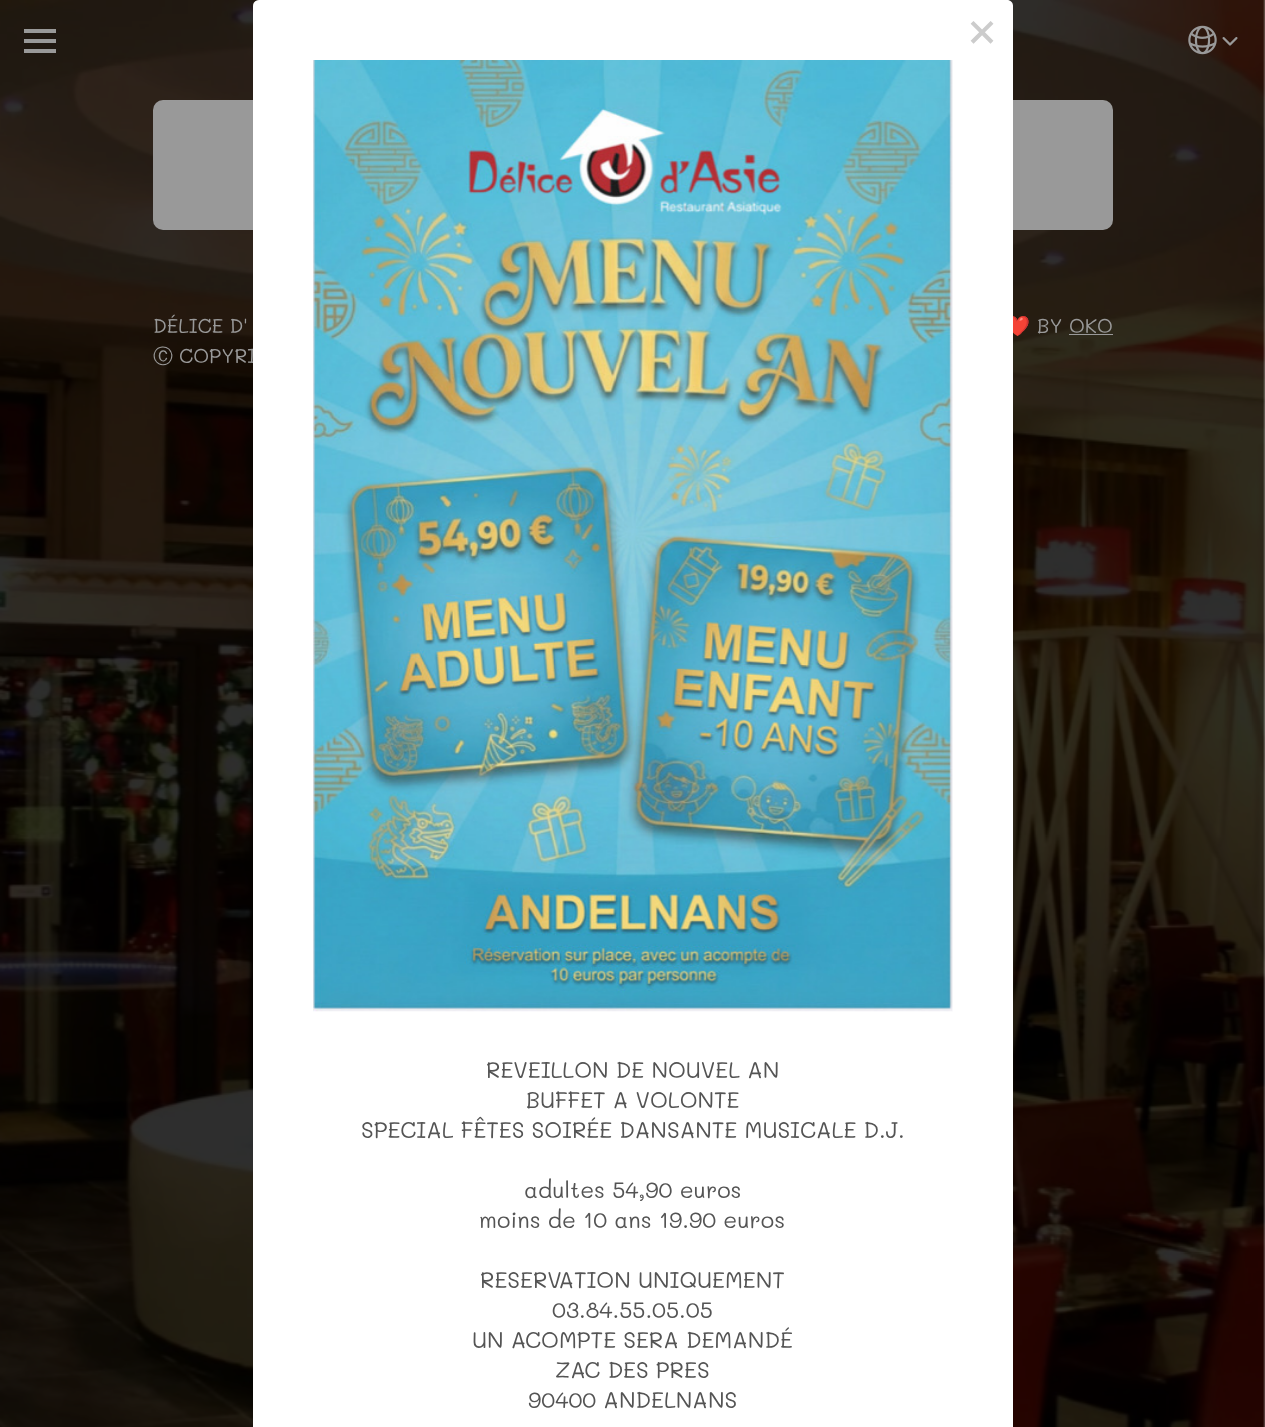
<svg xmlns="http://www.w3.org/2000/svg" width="1265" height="1427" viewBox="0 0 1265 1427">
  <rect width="100%" height="100%" fill="#ffffff"/>
  <image x="0" y="0" width="1265" height="1427" href="img2.png"/>
  <rect x="153" y="100" width="960" height="130" rx="10" fill="#999999"/>
  <text x="179" y="363" font-family="Mali" font-size="20" fill="#999999">COPYRI</text>
  <text x="1005" y="333" font-family="Noto Color Emoji" font-size="20" fill="#999999">❤️</text>
  <path d="M259 0H1007C1010.5 0 1013 2.5 1013 6V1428H253V6C253 2.5 255.5 0 259 0Z" fill="#ffffff"/>
  <text x="967" y="48" font-family="DejaVu Sans Mono" font-size="50" fill="#cccccc">×</text>
  <image x="313" y="60" width="640" height="952" href="img1.png"/>
  <text x="486" y="1078" font-family="Mali" font-size="22.5" fill="#545454">REVEILLON DE NOUVEL AN</text>
  <text x="526" y="1108" font-family="Mali" font-size="22.5" fill="#545454">BUFFET A VOLONTE</text>
  <text x="361" y="1138" font-family="Mali" font-size="22.5" fill="#545454">SPECIAL FÊTES SOIRÉE DANSANTE MUSICALE D.J.</text>
  <text x="524" y="1198" font-family="Mali" font-size="22.5" fill="#545454">adultes 54,90 euros</text>
  <text x="479" y="1228" font-family="Mali" font-size="22.5" fill="#545454">moins de 10 ans 19.90 euros</text>
  <text x="480" y="1288" font-family="Mali" font-size="22.5" fill="#545454">RESERVATION UNIQUEMENT</text>
  <text x="552" y="1318" font-family="Mali" font-size="22.5" fill="#545454">03.84.55.05.05</text>
  <text x="472" y="1348" font-family="Mali" font-size="22.5" fill="#545454">UN ACOMPTE SERA DEMANDÉ</text>
  <text x="555" y="1378" font-family="Mali" font-size="22.5" fill="#545454">ZAC DES PRES</text>
  <text x="528" y="1408" font-family="Mali" font-size="22.5" fill="#545454">90400 ANDELNANS</text>
  <rect x="24" y="29" width="32" height="4" fill="#999999"/>
  <rect x="24" y="39" width="32" height="4" fill="#999999"/>
  <rect x="24" y="49" width="32" height="4" fill="#999999"/>
  <image x="1188" y="25" width="29" height="30" href="img3.png"/>
  <image x="1222" y="37" width="16" height="9" href="img4.png"/>
  <text x="153" y="333" font-family="Mali" font-size="20" fill="#999999">DÉLICE D'</text>
  <text x="153" y="363" font-family="WenQuanYi Zen Hei" font-size="20" font-weight="500" fill="#999999">Ⓒ</text>
  <text x="1037" y="333" font-family="Mali" font-size="20" fill="#999999">BY OKO</text>
  <rect x="1069" y="334" width="44" height="1" fill="#999999"/>
</svg>
